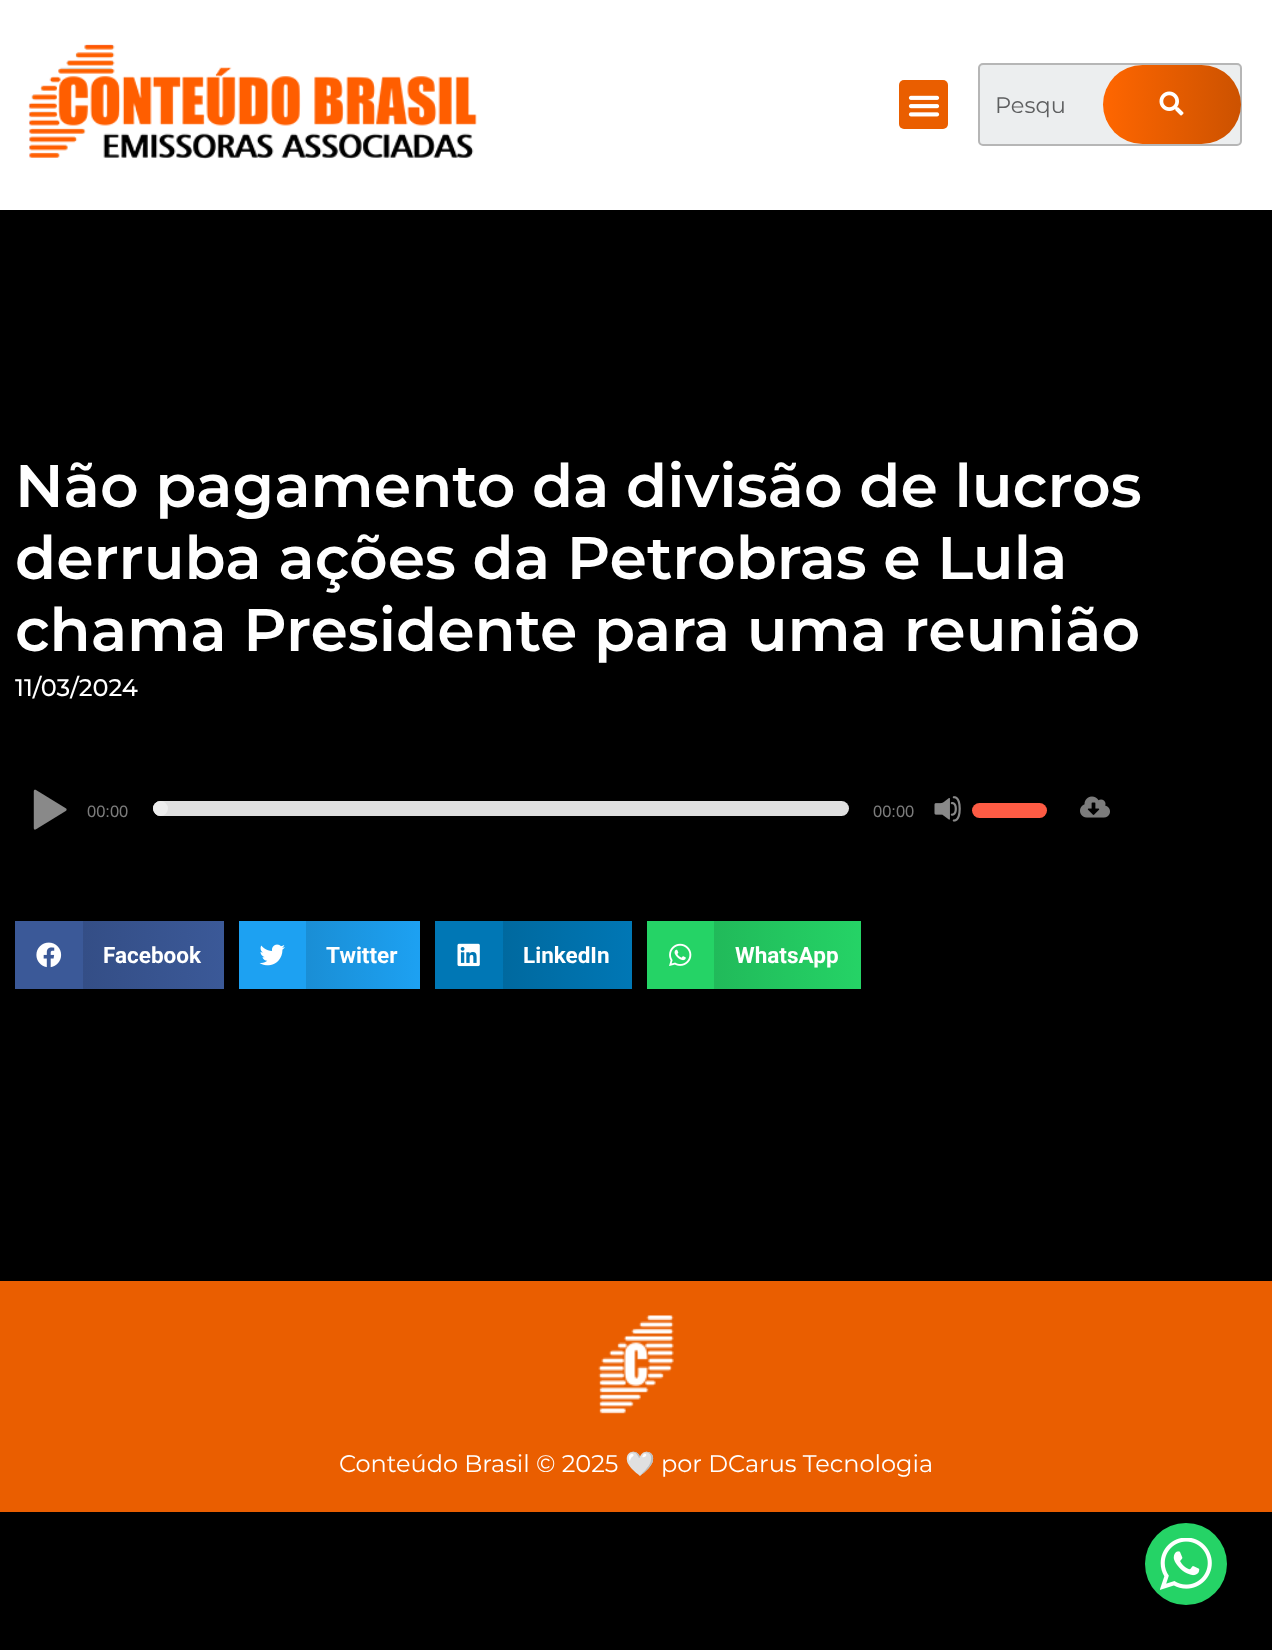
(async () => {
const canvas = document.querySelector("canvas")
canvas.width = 1272
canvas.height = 1650
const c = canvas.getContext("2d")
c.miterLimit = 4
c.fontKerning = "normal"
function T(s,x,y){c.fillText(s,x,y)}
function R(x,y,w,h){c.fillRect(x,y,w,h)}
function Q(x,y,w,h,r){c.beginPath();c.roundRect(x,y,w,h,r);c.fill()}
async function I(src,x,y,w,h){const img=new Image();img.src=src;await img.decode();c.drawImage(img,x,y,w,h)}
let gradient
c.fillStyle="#000"
R(0,0,1272,1650)
c.fillStyle="#fff"
R(0,0,1272,210)
await I("1.png",28,44,449,115)
c.fillStyle="#ea5e00"
Q(899,80,49,49,5)
await I("2.png",908,95,32,22)
c.fillStyle="#eceeef"
c.beginPath()
c.roundRect(979,64,262,81,4)
c.fill()
c.strokeStyle="#b6b6b6"
c.lineWidth=2
c.stroke()
c.font="22.5px Montserrat"
c.fillStyle="#5e5f60"
T("Pesqu",995,113)
gradient = c.createLinearGradient(1103,104,1241,104)
gradient.addColorStop(0,"#f60")
gradient.addColorStop(1,"#cc5200")
c.fillStyle = gradient
Q(1103,65,138,79,39.5)
await I("3.png",1159,91,25,25)
c.font="600 60px Montserrat"
c.fillStyle="#fff"
T("Não pagamento da divisão de lucros",15,507)
T("derruba ações da Petrobras e Lula",15,579)
T("chama Presidente para uma reunião",15,651)
c.font="500 24px Montserrat"
T("11/03/2024",15,696)
await I("4.png",33,789,34,41)
c.font="16.5px Liberation Sans"
c.fillStyle="#7c7c7c"
T("00:00",87,817)
c.fillStyle="#e0e0e0"
Q(153,801,696,15,7.5)
c.fillStyle="#ededed"
c.beginPath()
c.arc(160.5,808.5,4.5,0,7)
c.fill()
c.strokeStyle="#ededed"
c.lineWidth=6
c.stroke()
c.fillStyle="#7c7c7c"
T("00:00",873,817)
await I("5.png",934,796,27,26)
c.fillStyle="#fd5b44"
Q(972,803,75,15,7.5)
await I("6.png",1080,796,30,22)
c.fillStyle="#3b5998"
R(15,921,68,68)
await I("7.png",36,942,26,26)
gradient = c.createLinearGradient(83,955,224,955)
gradient.addColorStop(0,"#344e86")
gradient.addColorStop(1,"#3b5998")
c.fillStyle = gradient
R(83,921,141,68)
c.font="bold 22.5px Roboto"
c.fillStyle="#fff"
T("Facebook",103,963)
c.fillStyle="#1da1f2"
R(239,921,67,68)
await I("8.png",259,944,26,22)
gradient = c.createLinearGradient(306,955,420,955)
gradient.addColorStop(0,"#1a8ed5")
gradient.addColorStop(1,"#1da1f2")
c.fillStyle = gradient
R(306,921,114,68)
c.fillStyle="#fff"
T("Twitter",326,963)
c.fillStyle="#0077b5"
R(435,921,68,68)
await I("9.png",457,943,23,24)
gradient = c.createLinearGradient(503,955,632,955)
gradient.addColorStop(0,"#00699f")
gradient.addColorStop(1,"#0077b5")
c.fillStyle = gradient
R(503,921,129,68)
c.fillStyle="#fff"
T("LinkedIn",523,963)
c.fillStyle="#25d366"
R(647,921,67,68)
await I("10.png",669,943,23,23)
gradient = c.createLinearGradient(714,955,861,955)
gradient.addColorStop(0,"#21ba5a")
gradient.addColorStop(1,"#25d366")
c.fillStyle = gradient
R(714,921,147,68)
c.fillStyle="#fff"
T("WhatsApp",735,963)
c.fillStyle="#ea5e00"
R(0,1281,1272,231)
await I("11.png",598,1315,76,99)
c.font="24px Montserrat"
c.fillStyle="#fff"
T("Conteúdo Brasil © 2025",339,1472)
c.font="24px Noto Color Emoji"
T("🤍",625,1472)
c.font="24px Montserrat"
T("por DCarus Tecnologia",661,1472)
c.fillStyle="#25d366"
c.beginPath()
c.arc(1186,1564,41,0,7)
c.fill()
await I("12.png",1160,1538,52,52)
})()
